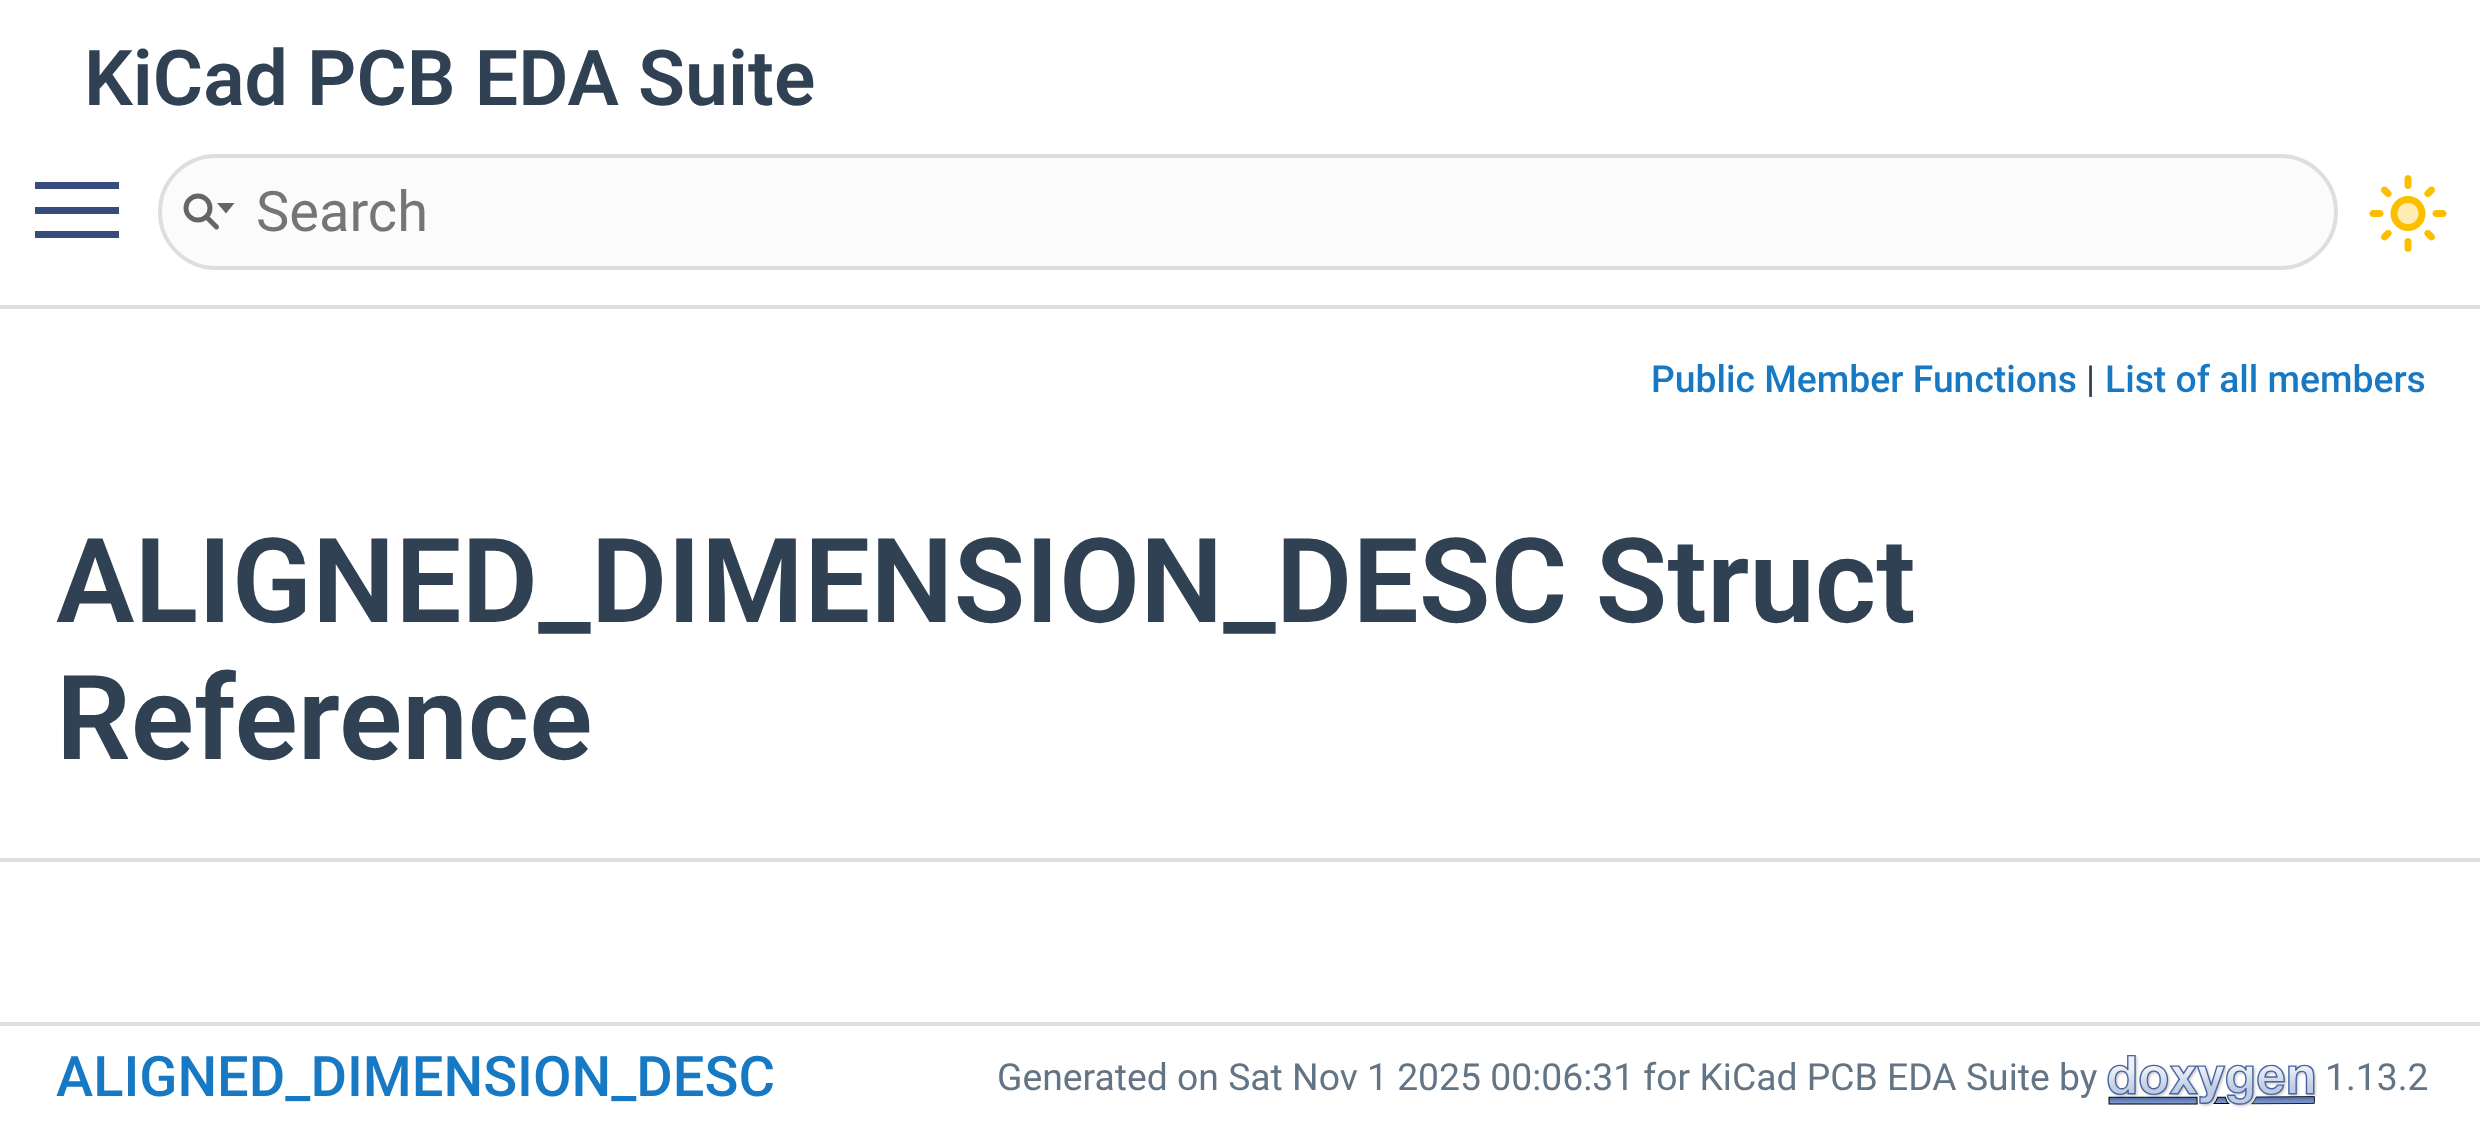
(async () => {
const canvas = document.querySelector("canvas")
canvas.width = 2480
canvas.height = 1130
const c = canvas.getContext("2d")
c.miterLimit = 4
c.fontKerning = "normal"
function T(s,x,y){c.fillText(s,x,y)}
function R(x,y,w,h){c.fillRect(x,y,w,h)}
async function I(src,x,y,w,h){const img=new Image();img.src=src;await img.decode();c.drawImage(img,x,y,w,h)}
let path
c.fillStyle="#fff"
R(0,0,2480,1130)
c.fillStyle="#dedede"
R(0,305,2480,4)
c.font="600 77px Roboto"
c.fillStyle="#2f4153"
T("KiCad PCB EDA Suite",84,105)
c.fillStyle="#364d7c"
R(35,207,84,7)
R(35,182,84,7)
R(35,231,84,7)
c.fillStyle="#fbfbfb"
c.beginPath()
c.roundRect(160,156,2176,112,56)
c.fill()
c.strokeStyle="#dedede"
c.lineWidth=4
c.stroke()
c.beginPath()
c.arc(198,208,12,0,7)
c.strokeStyle="#656565"
c.lineWidth=4.9
c.stroke()
c.fillStyle="#656565"
path = new Path2D("M217 203l9 10.5l8.5-10.5z")
c.fill(path)
path = new Path2D("M207 217.5l9.5 9.5")
c.lineCap="round"
c.stroke(path)
c.font="56px Roboto"
c.fillStyle="#757575"
T("Search",256,231)
await I("1.png",2369,175,78,77)
c.fillStyle="#dedede"
R(0,858,2480,4)
c.font="500 37.3px Roboto"
c.fillStyle="#1779c4"
T("Public Member Functions",1651,392)
c.font="37.3px Roboto"
c.fillStyle="#2f4153"
T("|",2086,392)
c.font="500 37.3px Roboto"
c.fillStyle="#1779c4"
T("List of all members",2105,392)
c.wordSpacing="-1px"
c.font="600 117.6px Roboto"
c.fillStyle="#2f4153"
T("ALIGNED_DIMENSION_DESC Struct",56,622)
c.wordSpacing="0px"
T("Reference",56,759)
c.fillStyle="#dedede"
R(0,1022,2480,4)
c.font="500 56px Roboto"
c.fillStyle="#1779c4"
T("ALIGNED_DIMENSION_DESC",56,1096)
c.font="37.3px Roboto"
c.fillStyle="#637485"
T("Generated on Sat Nov 1 2025 00:06:31 for KiCad PCB EDA Suite by",997,1090)
await I("2.png",2107,1055,210,53)
T("1.13.2",2325,1090)
})()
